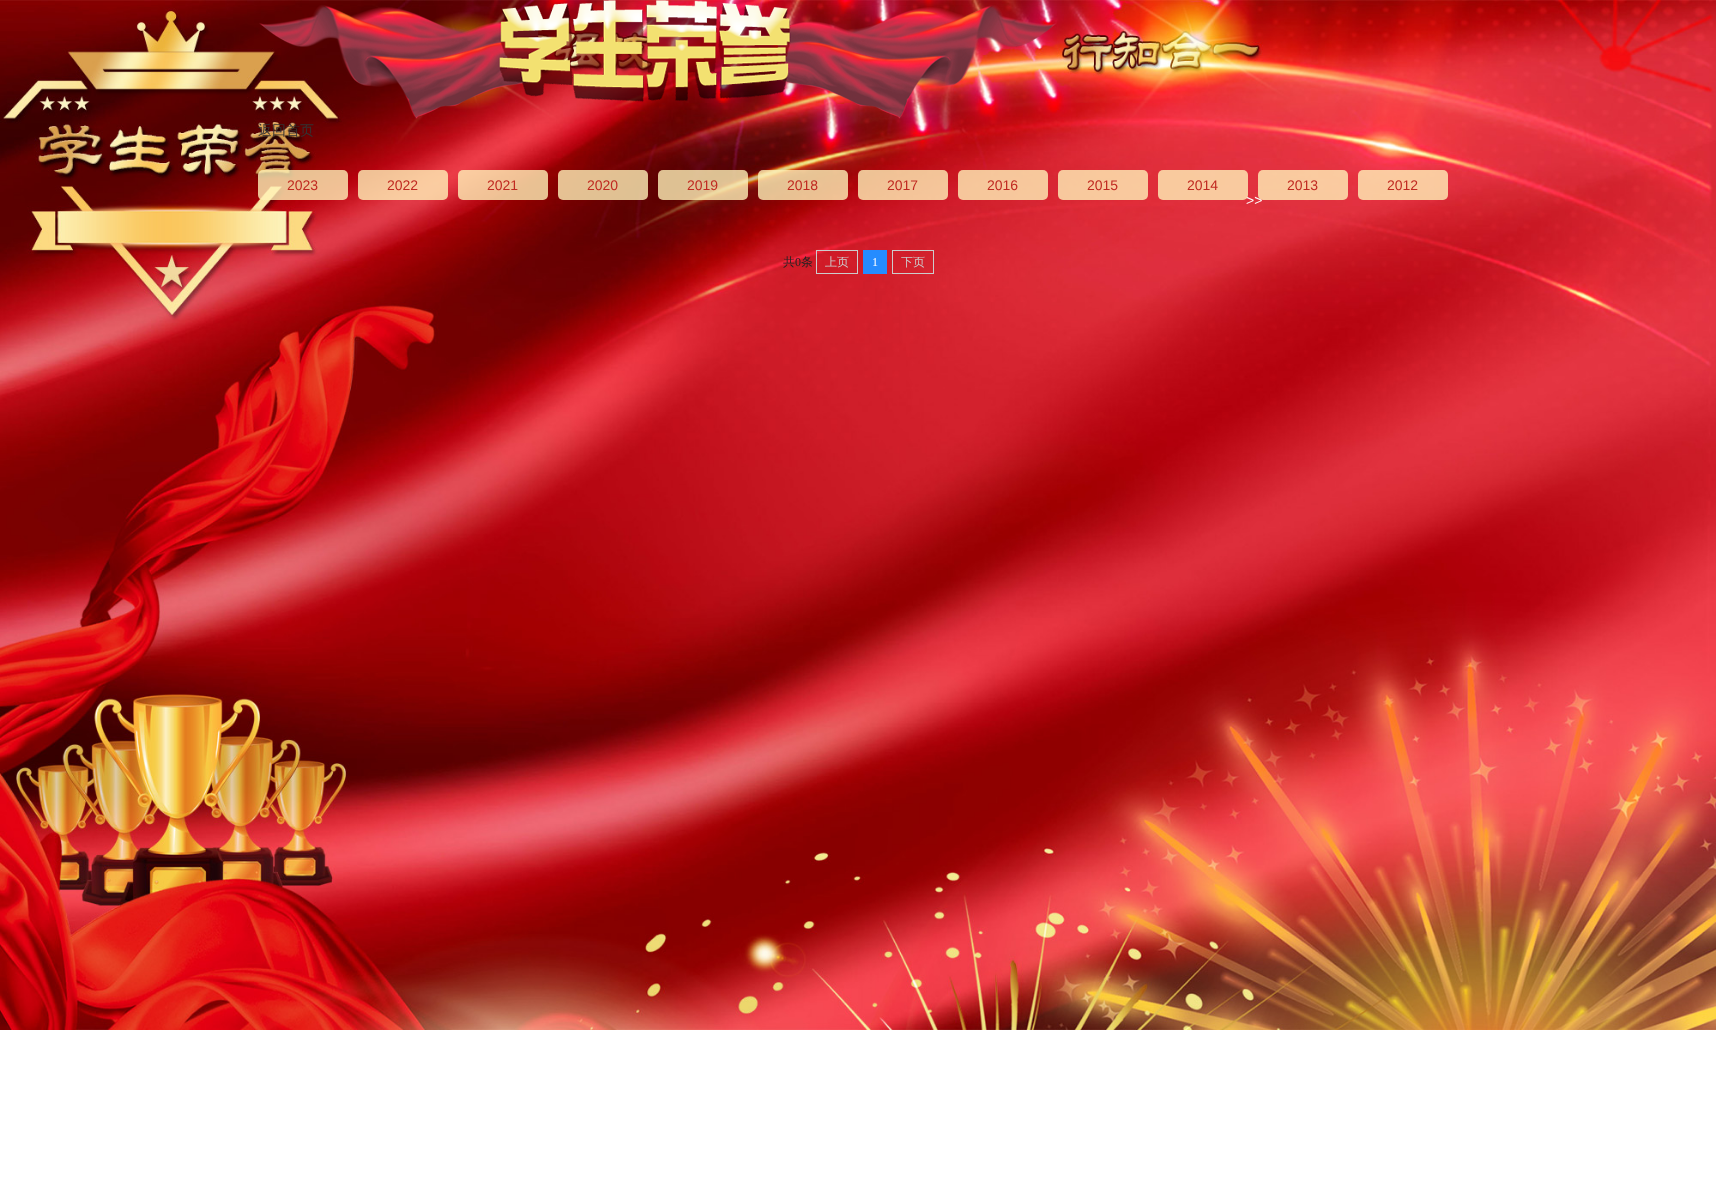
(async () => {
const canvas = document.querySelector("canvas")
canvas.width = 1716
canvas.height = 1201
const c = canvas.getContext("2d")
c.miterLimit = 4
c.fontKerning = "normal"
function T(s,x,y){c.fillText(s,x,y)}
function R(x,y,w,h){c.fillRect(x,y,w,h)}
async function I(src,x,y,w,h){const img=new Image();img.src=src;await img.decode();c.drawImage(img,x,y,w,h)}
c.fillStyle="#fff"
R(0,0,1716,1201)
await I("1.png",0,0,1716,1030)
await I("2.png",259,0,798,119)
c.font="500 14px WenQuanYi Zen Hei"
c.fillStyle="#333"
T("返回首页",258,135)
await I("3.png",258,170,90,30)
c.font="14px Liberation Sans"
c.fillStyle="#c02921"
T("2023",287,190)
await I("4.png",358,170,90,30)
T("2022",387,190)
await I("5.png",458,170,90,30)
T("2021",487,190)
await I("6.png",558,170,90,30)
T("2020",587,190)
await I("7.png",658,170,90,30)
T("2019",687,190)
await I("8.png",758,170,90,30)
T("2018",787,190)
await I("9.png",858,170,90,30)
T("2017",887,190)
await I("10.png",958,170,90,30)
T("2016",987,190)
await I("11.png",1058,170,90,30)
T("2015",1087,190)
c.fillStyle="#fff"
T(">>",1246,205)
await I("12.png",1158,170,90,30)
c.fillStyle="#c02921"
T("2014",1187,190)
await I("13.png",1258,170,90,30)
T("2013",1287,190)
await I("14.png",1358,170,90,30)
T("2012",1387,190)
c.font="500 12px WenQuanYi Zen Hei"
c.fillStyle="#222"
T("共",783,266)
c.font="12px Liberation Serif"
T("0",795,266)
c.font="500 12px WenQuanYi Zen Hei"
T("条",801,266)
c.strokeStyle="#ccc"
c.strokeRect(816.5,250.5,41,23)
c.fillStyle="#ccc"
T("上页",825,266)
c.fillStyle="#258cff"
R(863,250,24,24)
c.font="12px Liberation Serif"
c.fillStyle="#fff"
T("1",872,266)
c.strokeRect(892.5,250.5,41,23)
c.font="500 12px WenQuanYi Zen Hei"
c.fillStyle="#ccc"
T("下页",901,266)
})()
